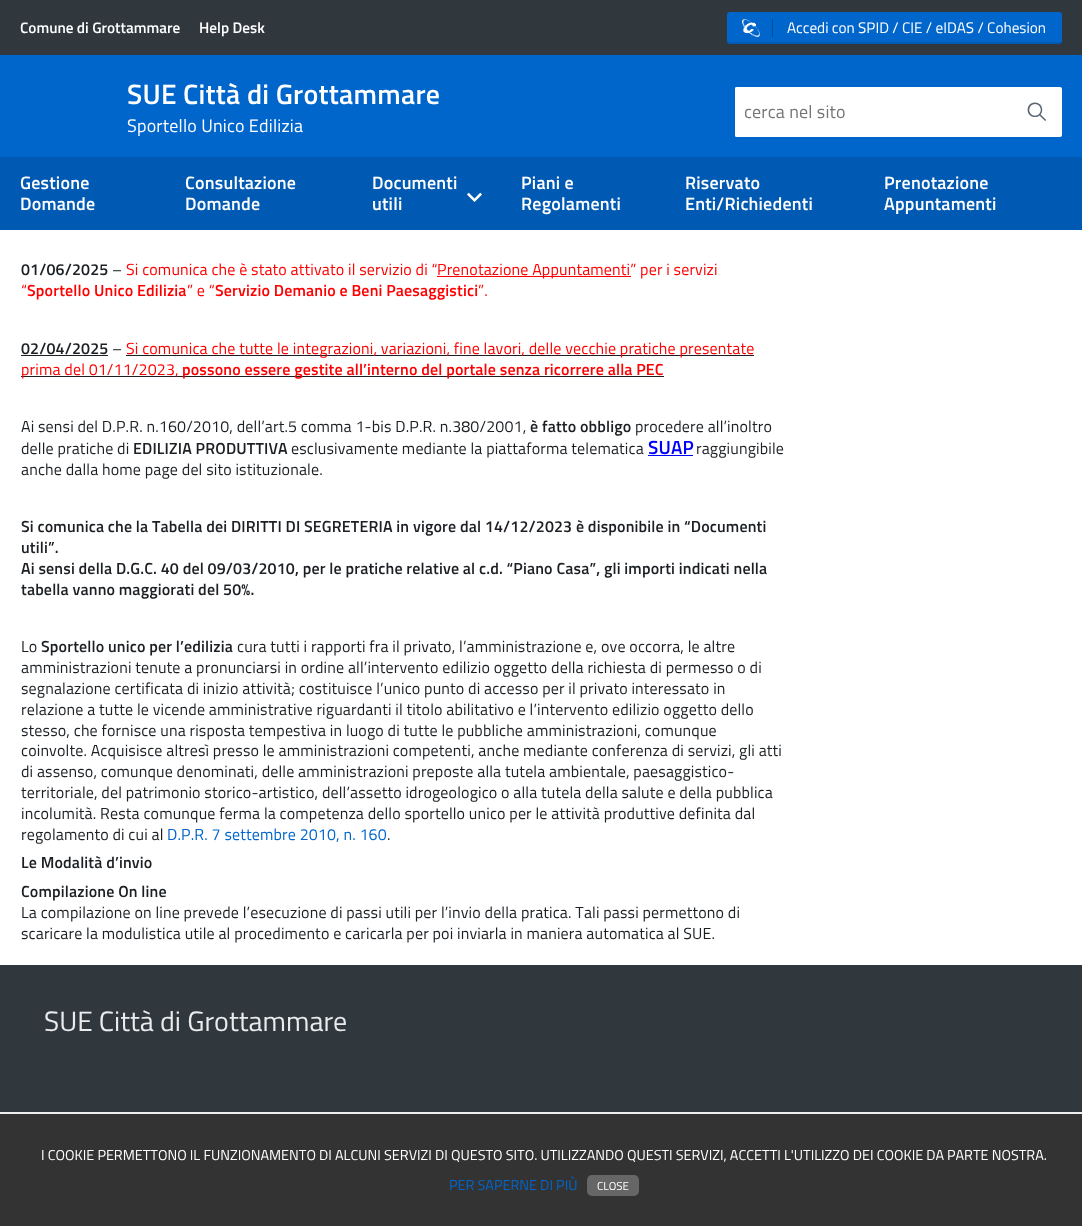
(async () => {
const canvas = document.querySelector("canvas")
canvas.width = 1082
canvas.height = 1226
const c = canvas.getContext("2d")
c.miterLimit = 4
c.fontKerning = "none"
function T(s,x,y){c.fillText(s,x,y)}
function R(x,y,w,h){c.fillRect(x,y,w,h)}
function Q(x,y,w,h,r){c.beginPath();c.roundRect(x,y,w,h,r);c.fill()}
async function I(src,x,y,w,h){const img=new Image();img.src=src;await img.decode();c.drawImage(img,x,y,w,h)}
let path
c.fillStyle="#fff"
R(0,0,1082,1226)
c.fillStyle="#30373d"
R(0,0,1082,55)
c.font="600 15.25px Titillium Web"
c.fillStyle="#fff"
T("Comune di Grottammare",20,33)
T("Help Desk",199,33)
c.fillStyle="#06c"
Q(727,12,335,32,3)
c.fillStyle="#0000001a"
path = new Path2D("M1059 44c2 0 3-1 3-3c0 1-1 1-3 1h-329c-2 0-3 0-3-1c0 2 1 3 3 3z")
c.fill(path)
c.fillStyle="#004d99"
R(772,19,1,18)
await I("1.png",742,19,18,18)
c.font="15.25px Titillium Web"
c.fillStyle="#fff"
T("Accedi con SPID / CIE / eIDAS / Cohesion",787,33)
c.fillStyle="#06c"
R(0,55,1082,102)
c.letterSpacing="0.25px"
c.font="600 28px Titillium Web"
c.fillStyle="#fff"
T("SUE Città di Grottammare",127,104)
c.letterSpacing="0.2px"
c.font="18px Titillium Web"
T("Sportello Unico Edilizia",127,132)
Q(735,87,327,50,2)
Q(735,87,277,50,2)
c.fillStyle="#757575"
T("cerca nel sito",744,118)
c.letterSpacing="0px"
c.font="bold 18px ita"
c.fillStyle="#5a6772"
c.save()
c.translate(1045,121)
c.rotate(-90 * Math.PI / 180)
c.fillText("🔍",0,0)
c.restore()
c.fillStyle="#0059b2"
R(0,157,1082,73)
c.letterSpacing="0.2px"
c.font="600 18px Titillium Web"
c.fillStyle="#fff"
T("Gestione",20,189)
T("Domande",20,210)
T("Consultazione",185,189)
T("Domande",185,210)
T("Documenti",372,189)
T("utili",372,210)
c.font="15px ita"
T("⏶",467,204)
c.font="600 18px Titillium Web"
T("Piani e",521,189)
T("Regolamenti",521,210)
T("Riservato",685,189)
T("Enti/Richiedenti",685,210)
T("Prenotazione",884,189)
T("Appuntamenti",884,210)
c.letterSpacing="0.15px"
c.font="600 16px Titillium Web"
c.fillStyle="#1c2024"
T("01/06/2025",21,275)
c.font="16px Titillium Web"
T("–",112,275)
c.fillStyle="#f00"
T("Si comunica che è stato attivato il servizio di “",126,275)
R(437,276,194,1)
T("Prenotazione Appuntamenti” per i servizi",437,275)
T("“",21,296)
c.font="600 16px Titillium Web"
T("Sportello Unico Edilizia",27,296)
c.font="16px Titillium Web"
T("” e “",187,296)
c.font="600 16px Titillium Web"
T("Servizio Demanio e Beni Paesaggistici",215,296)
c.font="16px Titillium Web"
T("”.",478,296)
c.font="600 16px Titillium Web"
c.fillStyle="#1c2024"
T("02/04/2025",21,354)
R(21,355,87,1)
c.font="16px Titillium Web"
T("–",112,354)
R(126,355,628,1)
c.fillStyle="#f00"
T("Si comunica che tutte le integrazioni, variazioni, fine lavori, delle vecchie pratiche presentate",126,354)
c.fillStyle="#1c2024"
R(21,376,643,1)
c.fillStyle="#f00"
T("prima del 01/11/2023,",21,375)
c.font="600 16px Titillium Web"
T("possono essere gestite all’interno del portale senza ricorrere alla PEC",182,375)
c.font="16px Titillium Web"
c.fillStyle="#1c2024"
T("Ai sensi del D.P.R. n.160/2010, dell’art.5 comma 1-bis D.P.R. n.380/2001,",21,432)
c.font="600 16px Titillium Web"
T("è fatto obbligo",530,432)
c.font="16px Titillium Web"
T("procedere all’inoltro",635,432)
T("delle pratiche di",21,454)
c.font="600 16px Titillium Web"
T("EDILIZIA PRODUTTIVA",133,454)
c.font="16px Titillium Web"
T("esclusivamente mediante la piattaforma telematica",291,454)
c.font="600 19px Titillium Web"
c.fillStyle="#00f"
T("SUAP",648,454)
R(648,455,45,1)
c.font="16px Titillium Web"
c.fillStyle="#1c2024"
T("raggiungibile",696,454)
T("anche dalla home page del sito istituzionale.",21,475)
c.font="600 16px Titillium Web"
T("Si comunica che la Tabella dei DIRITTI DI SEGRETERIA in vigore dal 14/12/2023 è disponibile in “Documenti",21,532)
T("utili”.",21,553)
T("Ai sensi della D.G.C. 40 del 09/03/2010, per le pratiche relative al c.d. “Piano Casa”, gli importi indicati nella",21,574)
T("tabella vanno maggiorati del 50%.",21,595)
c.font="16px Titillium Web"
T("Lo",21,652)
c.font="600 16px Titillium Web"
T("Sportello unico per l’edilizia",41,652)
c.font="16px Titillium Web"
T("cura tutti i rapporti fra il privato, l’amministrazione e, ove occorra, le altre",237,652)
T("amministrazioni tenute a pronunciarsi in ordine all’intervento edilizio oggetto della richiesta di permesso o di",21,673)
T("segnalazione certificata di inizio attività; costituisce l’unico punto di accesso per il privato interessato in",21,694)
T("relazione a tutte le vicende amministrative riguardanti il titolo abilitativo e l’intervento edilizio oggetto dello",21,715)
T("stesso, che fornisce una risposta tempestiva in luogo di tutte le pubbliche amministrazioni, comunque",21,736)
T("coinvolte. Acquisisce altresì presso le amministrazioni competenti, anche mediante conferenza di servizi, gli atti",21,756)
T("di assenso, comunque denominati, delle amministrazioni preposte alla tutela ambientale, paesaggistico-",21,777)
T("territoriale, del patrimonio storico-artistico, dell’assetto idrogeologico o alla tutela della salute e della pubblica",21,798)
T("incolumità. Resta comunque ferma la competenza dello sportello unico per le attività produttive definita dal",21,819)
T("regolamento di cui al",21,840)
c.fillStyle="#06c"
T("D.P.R. 7 settembre 2010, n. 160",167,840)
c.fillStyle="#1c2024"
T(".",387,840)
c.font="600 16px Titillium Web"
T("Le Modalità d’invio",21,868)
T("Compilazione On line",21,897)
c.font="16px Titillium Web"
T("La compilazione on line prevede l’esecuzione di passi utili per l’invio della pratica. Tali passi permettono di",21,918)
T("scaricare la modulistica utile al procedimento e caricarla per poi inviarla in maniera automatica al SUE.",21,939)
c.fillStyle="#30373d"
R(0,965,1082,147)
c.letterSpacing="0px"
c.font="28px Titillium Web"
c.fillStyle="#eaebec"
T("SUE Città di Grottammare",44,1031)
c.fillStyle="#333"
R(0,1114,1082,112)
c.fillStyle="#eee"
R(0,1112,1082,2)
c.font="14.4px Titillium Web"
c.fillStyle="#fff"
T("I COOKIE PERMETTONO IL FUNZIONAMENTO DI ALCUNI SERVIZI DI QUESTO SITO. UTILIZZANDO QUESTI SERVIZI, ACCETTI L'UTILIZZO DEI COOKIE DA",41,1160)
T("PARTE NOSTRA.",947,1160)
c.fillStyle="#06c"
T("PER SAPERNE DI PIÙ",449,1190)
c.fillStyle="#666"
Q(587,1175,52,21,5)
c.font="11.5px Titillium Web"
c.fillStyle="#fff"
T("CLOSE",597,1190)
})()
